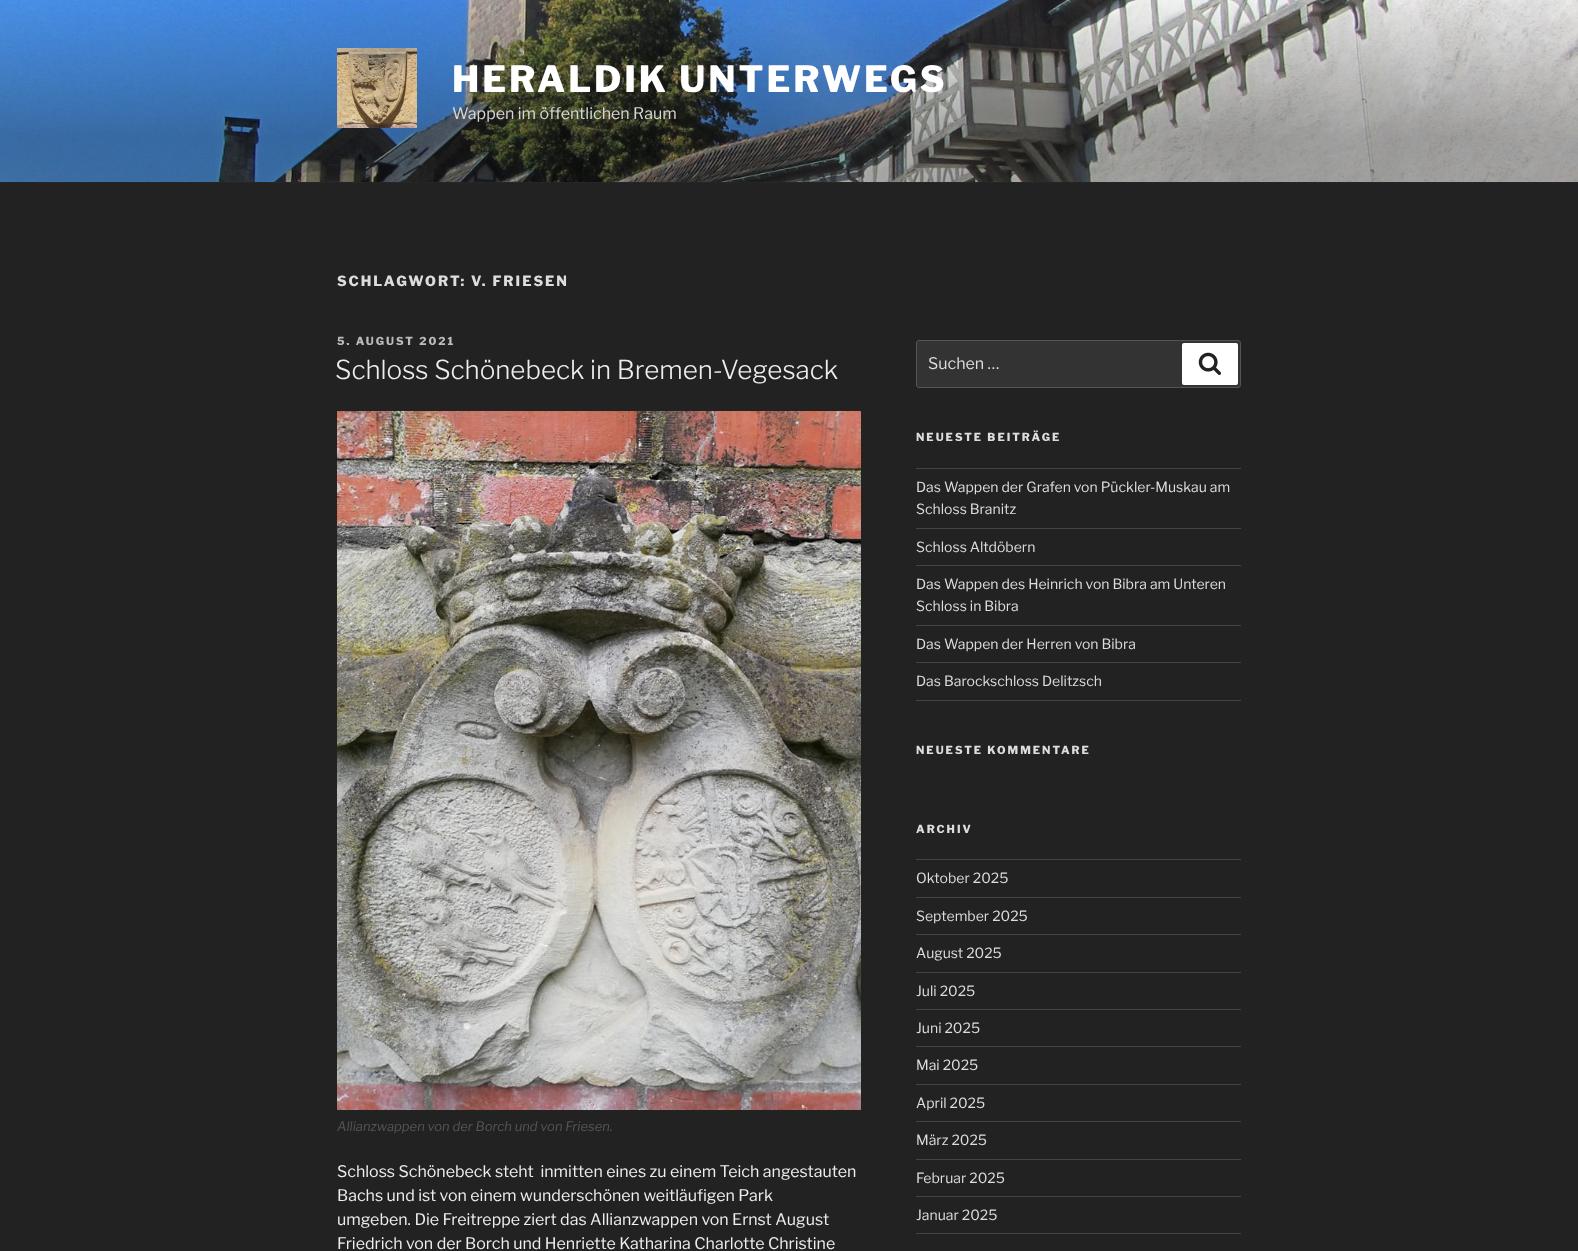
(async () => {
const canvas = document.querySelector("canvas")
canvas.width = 1578
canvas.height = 1251
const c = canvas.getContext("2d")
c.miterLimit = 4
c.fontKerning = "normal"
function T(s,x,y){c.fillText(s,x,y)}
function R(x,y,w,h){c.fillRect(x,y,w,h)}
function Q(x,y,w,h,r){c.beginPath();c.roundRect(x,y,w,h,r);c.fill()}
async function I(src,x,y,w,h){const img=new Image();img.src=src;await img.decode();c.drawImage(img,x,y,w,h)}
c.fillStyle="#222"
R(0,0,1578,1251)
c.fillStyle="#262626"
R(0,182,1578,1)
await I("1.png",0,0,1578,182)
await I("2.png",337,48,80,80)
c.letterSpacing="2.9px"
c.font="100 36px Libre Franklin"
c.fillStyle="#fff"
T("HERALDIK UNTERWEGS",452,92)
c.letterSpacing="0px"
c.font="100 16px 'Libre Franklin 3'"
c.fillStyle="#d6d7d5"
T("Wappen im öffentlichen Raum",452,119)
c.letterSpacing="2px"
c.font="100 14px Libre Franklin"
c.fillStyle="#ddd"
T("SCHLAGWORT: V. FRIESEN",337,286)
c.font="100 11px Libre Franklin"
c.fillStyle="#bbb"
T("5. AUGUST 2021",337,345)
c.letterSpacing="0px"
c.font="100 26px 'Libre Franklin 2'"
c.fillStyle="#eee"
T("Schloss Schönebeck in Bremen-Vegesack",335,379)
await I("3.png",337,411,524,699)
c.font="italic 100 13px Libre Franklin"
c.fillStyle="#555"
T("Allianzwappen von der Borch und von Friesen.",337,1131)
c.font="100 16px 'Libre Franklin 3'"
c.fillStyle="#eee"
T("Schloss Schönebeck steht  inmitten eines zu einem Teich angestauten",337,1177)
T("Bachs und ist von einem wunderschönen weitläufigen Park",337,1201)
T("umgeben. Die Freitreppe ziert das Allianzwappen von Ernst August",337,1225)
T("Friedrich von der Borch und Henriette Katharina Charlotte Christine",337,1249)
c.fillStyle="#333"
c.beginPath()
c.roundRect(916.5,340.5,324,47,2.5)
c.fill()
c.strokeStyle="#555"
c.stroke()
c.fillStyle="#ddd"
T("Suchen …",928,369)
c.fillStyle="#fff"
Q(1182,343,56,42,2)
await I("4.png",1198,352,23,23)
c.letterSpacing="2px"
c.font="100 11px Libre Franklin"
c.fillStyle="#ddd"
T("NEUESTE BEITRÄGE",916,441)
c.fillStyle="#444"
R(916,468,325,1)
R(916,528,325,1)
c.letterSpacing="0px"
c.font="100 14px 'Libre Franklin 3'"
c.fillStyle="#ddd"
T("Das Wappen der Grafen von Pückler-Muskau am",916,492)
T("Schloss Branitz",916,514)
c.fillStyle="#444"
R(916,565,325,1)
c.fillStyle="#ddd"
T("Schloss Altdöbern",916,552)
c.fillStyle="#444"
R(916,625,325,1)
c.fillStyle="#ddd"
T("Das Wappen des Heinrich von Bibra am Unteren",916,589)
T("Schloss in Bibra",916,611)
c.fillStyle="#444"
R(916,662,325,1)
c.fillStyle="#ddd"
T("Das Wappen der Herren von Bibra",916,649)
c.fillStyle="#444"
R(916,700,325,1)
c.fillStyle="#ddd"
T("Das Barockschloss Delitzsch",916,686)
c.letterSpacing="2px"
c.font="100 11px Libre Franklin"
T("NEUESTE KOMMENTARE",916,754)
T("ARCHIV",916,833)
c.fillStyle="#444"
R(916,859,325,1)
R(916,897,325,1)
c.letterSpacing="0px"
c.font="100 14px 'Libre Franklin 3'"
c.fillStyle="#ddd"
T("Oktober 2025",916,883)
c.fillStyle="#444"
R(916,934,325,1)
c.fillStyle="#ddd"
T("September 2025",916,921)
c.fillStyle="#444"
R(916,972,325,1)
c.fillStyle="#ddd"
T("August 2025",916,958)
c.fillStyle="#444"
R(916,1009,325,1)
c.fillStyle="#ddd"
T("Juli 2025",916,996)
c.fillStyle="#444"
R(916,1046,325,1)
c.fillStyle="#ddd"
T("Juni 2025",916,1033)
c.fillStyle="#444"
R(916,1084,325,1)
c.fillStyle="#ddd"
T("Mai 2025",916,1070)
c.fillStyle="#444"
R(916,1121,325,1)
c.fillStyle="#ddd"
T("April 2025",916,1108)
c.fillStyle="#444"
R(916,1159,325,1)
c.fillStyle="#ddd"
T("März 2025",916,1145)
c.fillStyle="#444"
R(916,1196,325,1)
c.fillStyle="#ddd"
T("Februar 2025",916,1183)
c.fillStyle="#444"
R(916,1233,325,1)
c.fillStyle="#ddd"
T("Januar 2025",916,1220)
})()
